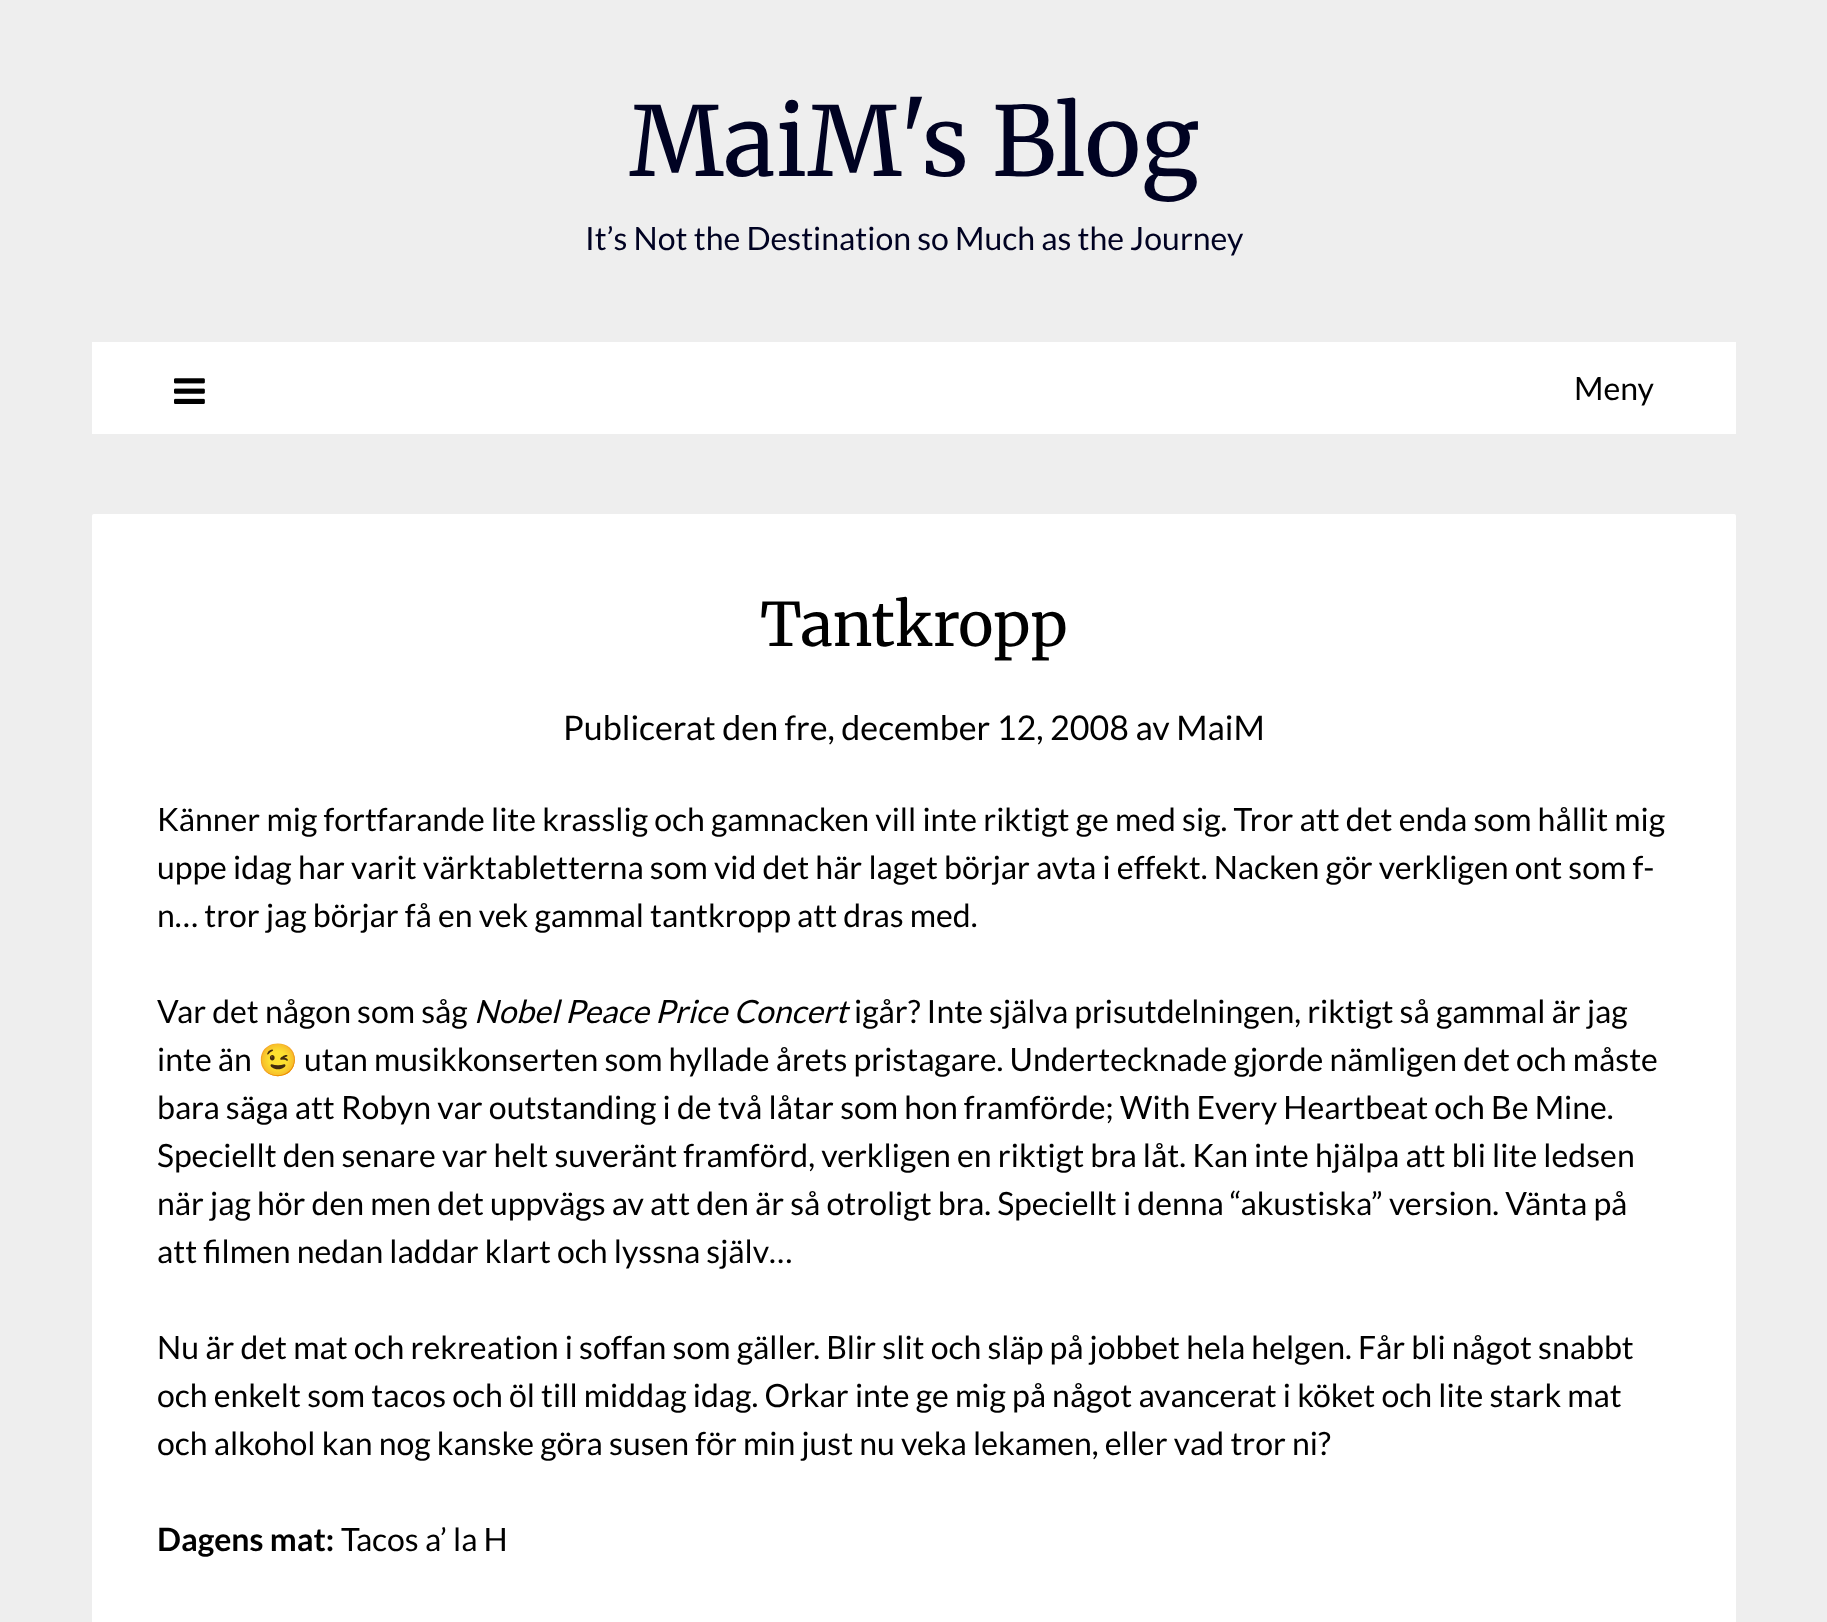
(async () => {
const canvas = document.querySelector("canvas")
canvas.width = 1827
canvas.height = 1622
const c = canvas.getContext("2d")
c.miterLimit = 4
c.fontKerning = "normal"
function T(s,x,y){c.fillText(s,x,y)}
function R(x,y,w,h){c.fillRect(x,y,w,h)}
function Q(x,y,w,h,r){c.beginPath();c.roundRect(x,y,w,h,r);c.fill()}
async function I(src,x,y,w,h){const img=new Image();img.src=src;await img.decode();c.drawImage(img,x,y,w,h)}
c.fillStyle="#eee"
R(0,0,1827,1622)
c.font="96px Merriweather"
c.fillStyle="#000222"
T("MaiM's Blog",629,176)
c.font="32px Lato"
T("It’s Not the Destination so Much as the Journey",585,250)
c.fillStyle="#fff"
R(92,342,1644,92)
await I("1.png",174,378,31,26)
c.fillStyle="#000"
T("Meny",1574,400)
c.fillStyle="#fff"
Q(92,514,1644,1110,2)
c.font="60px Merriweather"
c.fillStyle="#000"
T("Tantkropp",760,646)
c.font="34px Lato"
T("Publicerat den fre, december 12, 2008 av MaiM",563,740)
c.font="32px Lato"
T("Känner mig fortfarande lite krasslig och gamnacken vill inte riktigt ge med sig. Tror att det enda som hållit mig",157,831)
T("uppe idag har varit värktabletterna som vid det här laget börjar avta i effekt. Nacken gör verkligen ont som f-",157,879)
T("n… tror jag börjar få en vek gammal tantkropp att dras med.",157,927)
T("Var det någon som såg",157,1023)
c.font="italic 32px Lato"
T("Nobel Peace Price Concert",474,1023)
c.font="32px Lato"
T("igår? Inte själva prisutdelningen, riktigt så gammal är jag",854,1023)
T("inte än",157,1071)
c.font="32px Noto Color Emoji"
T("😉",258,1071)
c.font="32px Lato"
T("utan musikkonserten som hyllade årets pristagare. Undertecknade gjorde nämligen det och måste",304,1071)
T("bara säga att Robyn var outstanding i de två låtar som hon framförde; With Every Heartbeat och Be Mine.",157,1119)
T("Speciellt den senare var helt suveränt framförd, verkligen en riktigt bra låt. Kan inte hjälpa att bli lite ledsen",157,1167)
T("när jag hör den men det uppvägs av att den är så otroligt bra. Speciellt i denna “akustiska” version. Vänta på",157,1215)
T("att filmen nedan laddar klart och lyssna själv…",157,1263)
T("Nu är det mat och rekreation i soffan som gäller. Blir slit och släp på jobbet hela helgen. Får bli något snabbt",157,1359)
T("och enkelt som tacos och öl till middag idag. Orkar inte ge mig på något avancerat i köket och lite stark mat",157,1407)
T("och alkohol kan nog kanske göra susen för min just nu veka lekamen, eller vad tror ni?",157,1455)
c.font="bold 32px Lato"
T("Dagens mat:",157,1551)
c.font="32px Lato"
T("Tacos a’ la H",341,1551)
})()
